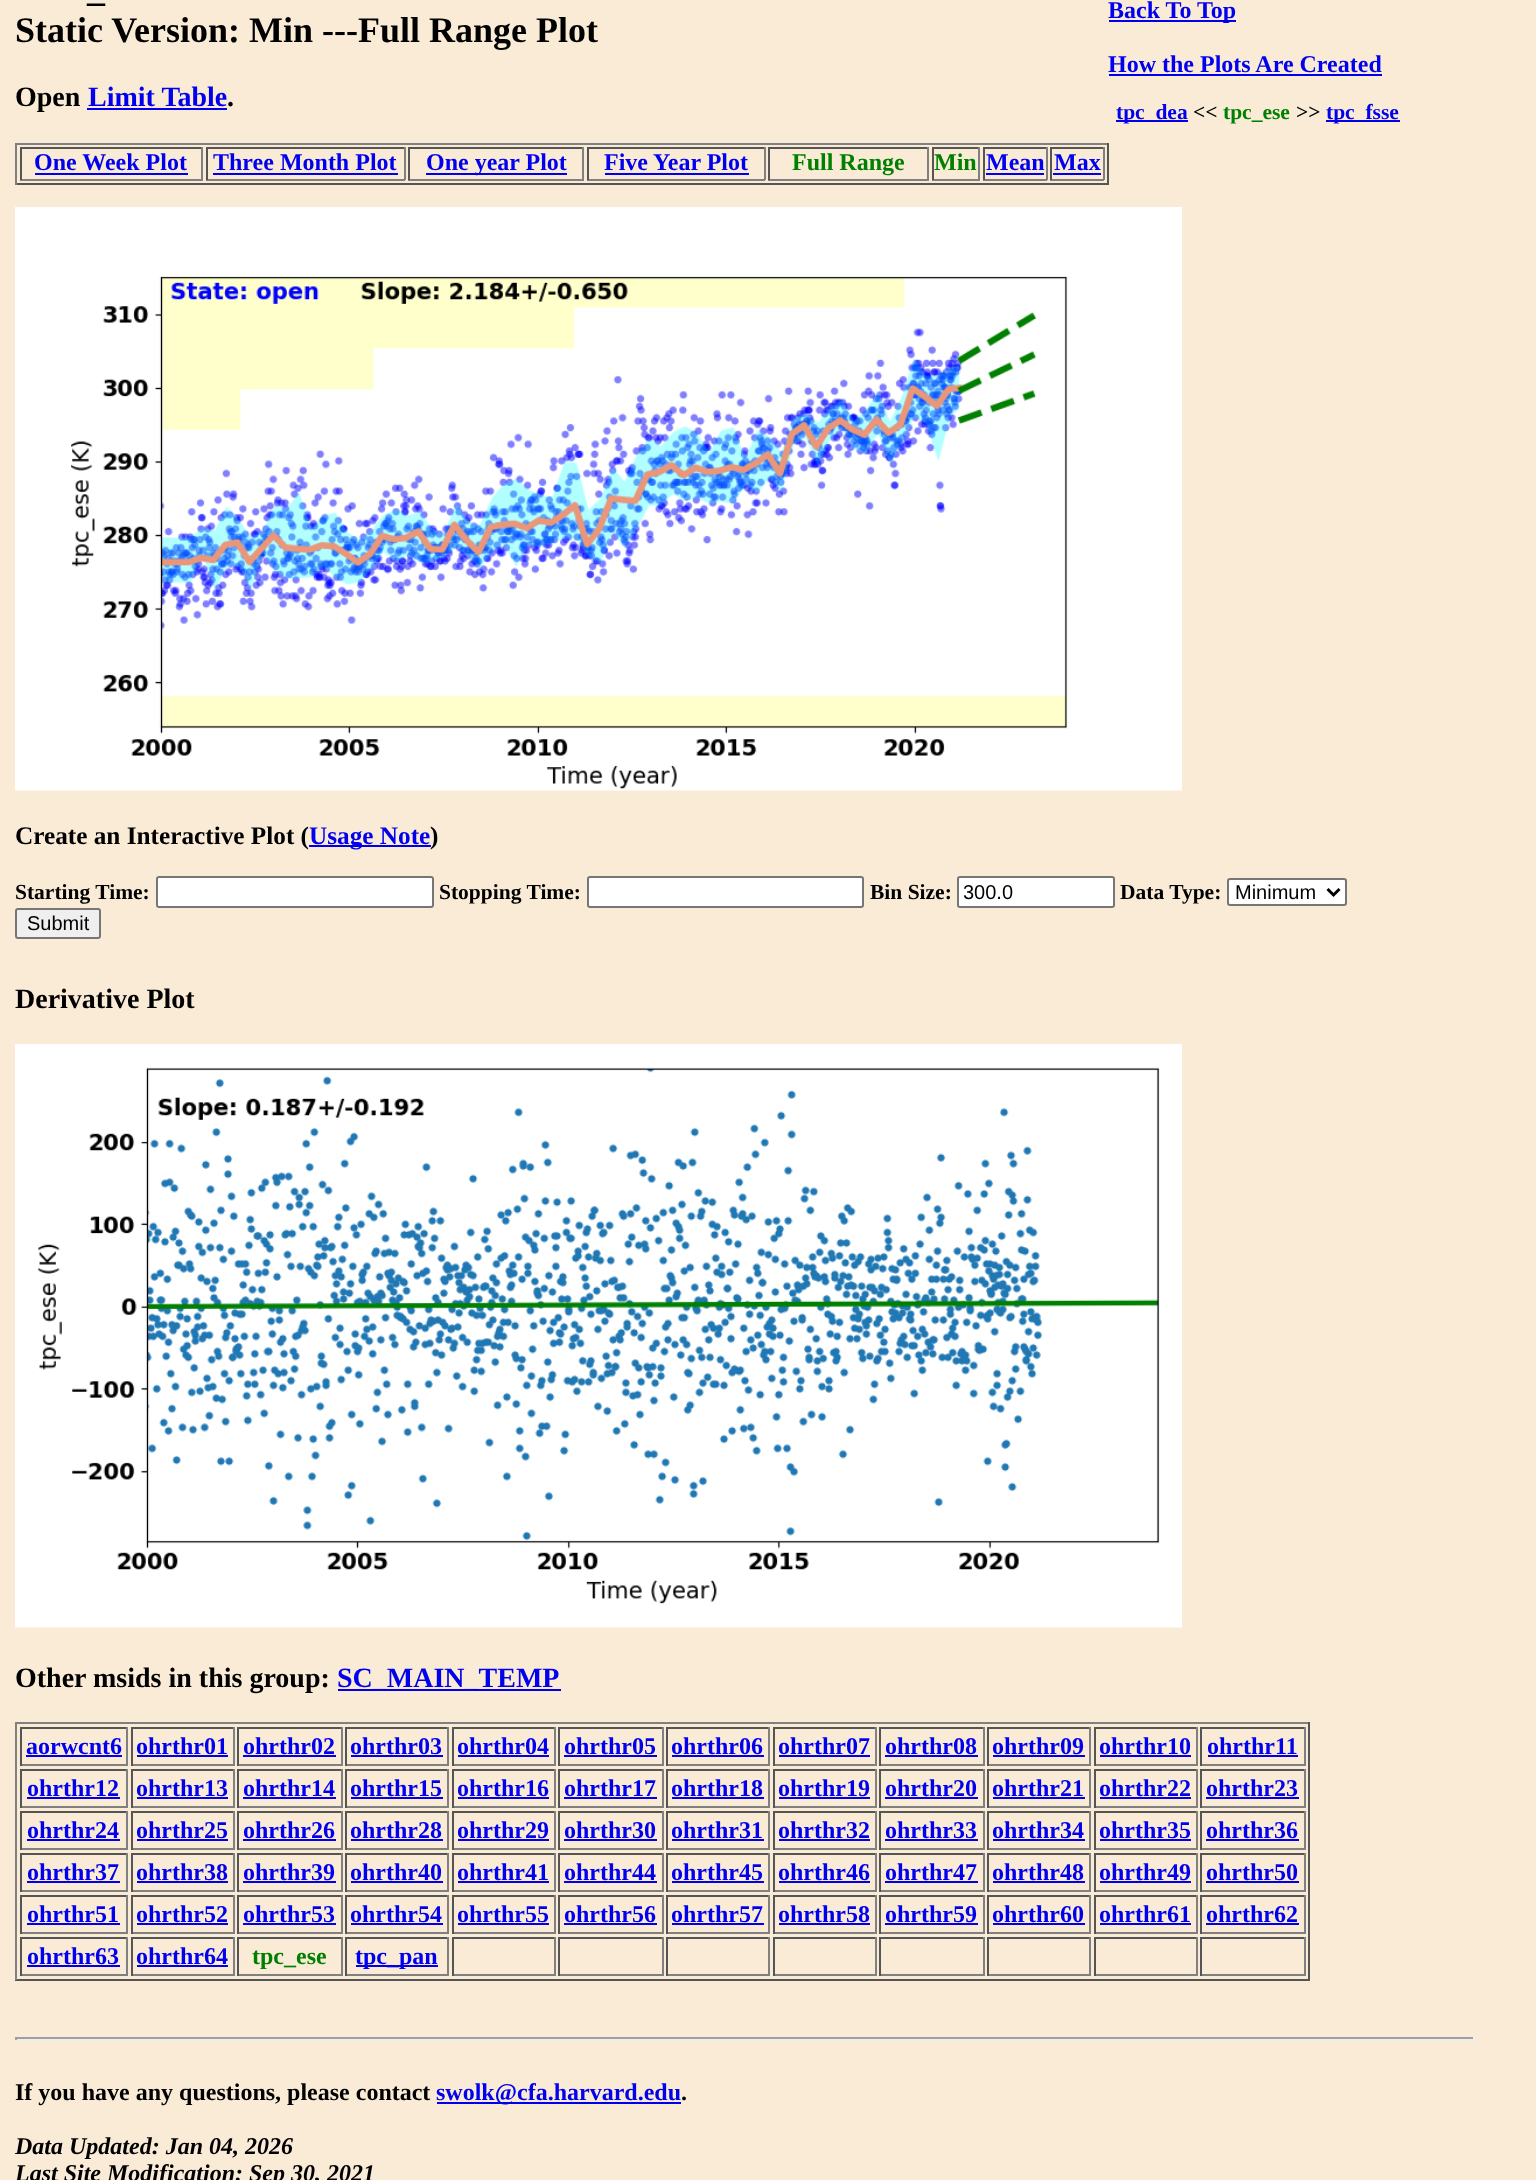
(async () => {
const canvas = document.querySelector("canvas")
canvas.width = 1536
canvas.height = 2180
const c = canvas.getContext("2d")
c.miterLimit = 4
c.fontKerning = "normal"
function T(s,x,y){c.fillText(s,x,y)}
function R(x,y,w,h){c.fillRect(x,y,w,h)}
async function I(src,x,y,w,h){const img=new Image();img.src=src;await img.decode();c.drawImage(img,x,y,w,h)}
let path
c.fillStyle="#faebd7"
R(0,0,1536,2180)
c.fillStyle="#00e"
R(1109,20,127,2)
c.font="bold 24px Liberation Serif"
T("Back To Top",1108,18)
T("How the Plots Are Created",1108,72)
R(1109,74,273,2)
R(1116,120,72,2)
c.font="bold 21.5px Liberation Serif"
T("tpc_dea",1116,119)
c.fillStyle="#000"
T("<<",1193,119)
c.fillStyle="#008000"
T("tpc_ese",1223,119)
c.fillStyle="#000"
T(">>",1296,119)
c.fillStyle="#00e"
R(1326,120,74,2)
T("tpc_fsse",1326,119)
c.font="bold 36px Liberation Serif"
c.fillStyle="#000"
T("_",87,1)
T("Static Version: Min ---Full Range Plot",15,42)
c.font="bold 28px Liberation Serif"
T("Open",15,106)
c.fillStyle="#00e"
T("Limit Table",88,106)
R(87,108,140,2)
c.fillStyle="#000"
T(".",227,106)
c.fillStyle="#808080"
R(15,143,1094,2)
c.fillStyle="#555"
R(1107,143,2,42)
R(15,183,1094,2)
c.fillStyle="#808080"
R(15,143,2,42)
c.fillStyle="#555"
R(20,147,183,2)
c.fillStyle="#808080"
R(201,147,2,33)
R(20,179,183,2)
c.fillStyle="#555"
R(20,147,2,33)
c.font="bold 24px Liberation Serif"
c.fillStyle="#00e"
T("One Week Plot",34,170)
R(35,173,153,2)
c.fillStyle="#555"
R(206,147,199,2)
c.fillStyle="#808080"
R(404,147,2,33)
R(206,179,199,2)
c.fillStyle="#555"
R(206,147,2,33)
c.fillStyle="#00e"
T("Three Month Plot",213,170)
R(213,173,185,2)
c.fillStyle="#555"
R(408,147,176,2)
c.fillStyle="#808080"
R(582,147,2,33)
R(408,179,176,2)
c.fillStyle="#555"
R(408,147,2,33)
c.fillStyle="#00e"
R(426,173,141,2)
T("One year Plot",426,170)
c.fillStyle="#555"
R(587,147,178,2)
c.fillStyle="#808080"
R(764,147,2,33)
R(587,179,178,2)
c.fillStyle="#555"
R(587,147,2,33)
c.fillStyle="#00e"
T("Five Year Plot",604,170)
R(605,173,144,2)
c.fillStyle="#555"
R(768,147,161,2)
c.fillStyle="#808080"
R(927,147,2,33)
R(768,179,161,2)
c.fillStyle="#555"
R(768,147,2,33)
c.fillStyle="#008000"
T("Full Range",792,170)
c.fillStyle="#555"
R(932,147,48,2)
c.fillStyle="#808080"
R(978,147,2,33)
R(932,179,48,2)
c.fillStyle="#555"
R(932,147,2,33)
c.fillStyle="#008000"
T("Min",934,170)
c.fillStyle="#555"
R(983,147,64,2)
c.fillStyle="#808080"
R(1046,147,2,33)
R(983,179,64,2)
c.fillStyle="#555"
R(983,147,2,33)
c.fillStyle="#00e"
T("Mean",986,170)
R(986,173,58,2)
c.fillStyle="#555"
R(1050,147,54,2)
c.fillStyle="#808080"
R(1103,147,2,33)
R(1050,179,54,2)
c.fillStyle="#555"
R(1050,147,2,33)
c.fillStyle="#00e"
T("Max",1054,170)
R(1053,173,48,2)
await I("1.png",15,207,1167,584)
c.font="bold 25.25px Liberation Serif"
c.fillStyle="#000"
T("Create an Interactive Plot (",15,844)
c.fillStyle="#00e"
R(309,845,122,2)
T("Usage Note",309,844)
c.fillStyle="#000"
T(")",430,844)
c.font="bold 21.5px Liberation Serif"
T("Starting Time:",15,899)
c.fillStyle="#fff"
c.beginPath()
c.roundRect(157,877,276,30,2)
c.fill()
c.strokeStyle="#767676"
c.lineWidth=2
c.stroke()
c.fillStyle="#000"
T("Stopping Time:",439,899)
c.fillStyle="#fff"
c.beginPath()
c.roundRect(588,877,275,30,2)
c.fill()
c.stroke()
c.fillStyle="#000"
T("Bin Size:",870,899)
c.fillStyle="#fff"
c.beginPath()
c.roundRect(958,877,156,30,2)
c.fill()
c.stroke()
c.font="20px Liberation Sans"
c.fillStyle="#000"
T("300.0",963,899)
c.font="bold 21.5px Liberation Serif"
T("Data Type:",1120,899)
c.fillStyle="#fff"
c.beginPath()
c.roundRect(1228,879,118,26,2)
c.fill()
c.stroke()
path = new Path2D("M1327.5 889l6 6l6-6")
c.strokeStyle="#000"
c.lineWidth=3
c.stroke(path)
c.font="20px Liberation Sans"
c.fillStyle="#000"
T("Minimum",1235,899)
c.fillStyle="#efefef"
c.beginPath()
c.roundRect(16,909,84,29,2)
c.fill()
c.strokeStyle="#767676"
c.lineWidth=2
c.stroke()
c.fillStyle="#000"
T("Submit",27,930)
c.font="bold 28px Liberation Serif"
T("Derivative Plot",15,1008)
await I("2.png",15,1044,1167,584)
T("Other msids in this group:",15,1687)
c.fillStyle="#00e"
R(338,1689,223,2)
T("SC_MAIN_TEMP",337,1687)
c.fillStyle="#808080"
R(15,1722,1295,2)
c.fillStyle="#555"
R(1308,1722,2,258)
R(15,1979,1295,2)
c.fillStyle="#808080"
R(15,1722,2,258)
c.fillStyle="#555"
R(20,1727,108,2)
c.fillStyle="#808080"
R(126,1727,2,39)
R(20,1764,108,2)
c.fillStyle="#555"
R(20,1727,2,39)
c.font="bold 24px Liberation Serif"
c.fillStyle="#00e"
T("aorwcnt6",26,1754)
R(26,1755,96,2)
c.fillStyle="#555"
R(131,1727,103,2)
c.fillStyle="#808080"
R(233,1727,2,39)
R(131,1764,103,2)
c.fillStyle="#555"
R(131,1727,2,39)
c.fillStyle="#00e"
T("ohrthr01",136,1754)
R(137,1755,91,2)
c.fillStyle="#555"
R(237,1727,105,2)
c.fillStyle="#808080"
R(341,1727,2,39)
R(237,1764,105,2)
c.fillStyle="#555"
R(237,1727,2,39)
c.fillStyle="#00e"
T("ohrthr02",243,1754)
R(243,1755,93,2)
c.fillStyle="#555"
R(345,1727,104,2)
c.fillStyle="#808080"
R(447,1727,2,39)
R(345,1764,104,2)
c.fillStyle="#555"
R(345,1727,2,39)
c.fillStyle="#00e"
T("ohrthr03",350,1754)
R(351,1755,92,2)
c.fillStyle="#555"
R(452,1727,103,2)
c.fillStyle="#808080"
R(554,1727,2,39)
R(452,1764,103,2)
c.fillStyle="#555"
R(452,1727,2,39)
c.fillStyle="#00e"
T("ohrthr04",457,1754)
R(458,1755,91,2)
c.fillStyle="#555"
R(558,1727,105,2)
c.fillStyle="#808080"
R(662,1727,2,39)
R(558,1764,105,2)
c.fillStyle="#555"
R(558,1727,2,39)
c.fillStyle="#00e"
T("ohrthr05",564,1754)
R(564,1755,93,2)
c.fillStyle="#555"
R(666,1727,104,2)
c.fillStyle="#808080"
R(768,1727,2,39)
R(666,1764,104,2)
c.fillStyle="#555"
R(666,1727,2,39)
c.fillStyle="#00e"
T("ohrthr06",671,1754)
R(672,1755,92,2)
c.fillStyle="#555"
R(773,1727,103,2)
c.fillStyle="#808080"
R(875,1727,2,39)
R(773,1764,103,2)
c.fillStyle="#555"
R(773,1727,2,39)
c.fillStyle="#00e"
T("ohrthr07",778,1754)
R(779,1755,91,2)
c.fillStyle="#555"
R(879,1727,105,2)
c.fillStyle="#808080"
R(983,1727,2,39)
R(879,1764,105,2)
c.fillStyle="#555"
R(879,1727,2,39)
c.fillStyle="#00e"
T("ohrthr08",885,1754)
R(885,1755,93,2)
c.fillStyle="#555"
R(987,1727,104,2)
c.fillStyle="#808080"
R(1089,1727,2,39)
R(987,1764,104,2)
c.fillStyle="#555"
R(987,1727,2,39)
c.fillStyle="#00e"
T("ohrthr09",992,1754)
R(993,1755,92,2)
c.fillStyle="#555"
R(1094,1727,103,2)
c.fillStyle="#808080"
R(1196,1727,2,39)
R(1094,1764,103,2)
c.fillStyle="#555"
R(1094,1727,2,39)
c.fillStyle="#00e"
T("ohrthr10",1099,1754)
R(1100,1755,91,2)
c.fillStyle="#555"
R(1200,1727,105,2)
c.fillStyle="#808080"
R(1304,1727,2,39)
R(1200,1764,105,2)
c.fillStyle="#555"
R(1200,1727,2,39)
c.fillStyle="#00e"
T("ohrthr11",1207,1754)
R(1208,1755,90,2)
c.fillStyle="#555"
R(20,1769,108,2)
c.fillStyle="#808080"
R(126,1769,2,39)
R(20,1806,108,2)
c.fillStyle="#555"
R(20,1769,2,39)
c.fillStyle="#00e"
T("ohrthr12",27,1796)
R(27,1797,93,2)
c.fillStyle="#555"
R(131,1769,103,2)
c.fillStyle="#808080"
R(233,1769,2,39)
R(131,1806,103,2)
c.fillStyle="#555"
R(131,1769,2,39)
c.fillStyle="#00e"
T("ohrthr13",136,1796)
R(137,1797,91,2)
c.fillStyle="#555"
R(237,1769,105,2)
c.fillStyle="#808080"
R(341,1769,2,39)
R(237,1806,105,2)
c.fillStyle="#555"
R(237,1769,2,39)
c.fillStyle="#00e"
T("ohrthr14",243,1796)
R(243,1797,93,2)
c.fillStyle="#555"
R(345,1769,104,2)
c.fillStyle="#808080"
R(447,1769,2,39)
R(345,1806,104,2)
c.fillStyle="#555"
R(345,1769,2,39)
c.fillStyle="#00e"
T("ohrthr15",350,1796)
R(351,1797,92,2)
c.fillStyle="#555"
R(452,1769,103,2)
c.fillStyle="#808080"
R(554,1769,2,39)
R(452,1806,103,2)
c.fillStyle="#555"
R(452,1769,2,39)
c.fillStyle="#00e"
T("ohrthr16",457,1796)
R(458,1797,91,2)
c.fillStyle="#555"
R(558,1769,105,2)
c.fillStyle="#808080"
R(662,1769,2,39)
R(558,1806,105,2)
c.fillStyle="#555"
R(558,1769,2,39)
c.fillStyle="#00e"
T("ohrthr17",564,1796)
R(564,1797,93,2)
c.fillStyle="#555"
R(666,1769,104,2)
c.fillStyle="#808080"
R(768,1769,2,39)
R(666,1806,104,2)
c.fillStyle="#555"
R(666,1769,2,39)
c.fillStyle="#00e"
T("ohrthr18",671,1796)
R(672,1797,92,2)
c.fillStyle="#555"
R(773,1769,103,2)
c.fillStyle="#808080"
R(875,1769,2,39)
R(773,1806,103,2)
c.fillStyle="#555"
R(773,1769,2,39)
c.fillStyle="#00e"
T("ohrthr19",778,1796)
R(779,1797,91,2)
c.fillStyle="#555"
R(879,1769,105,2)
c.fillStyle="#808080"
R(983,1769,2,39)
R(879,1806,105,2)
c.fillStyle="#555"
R(879,1769,2,39)
c.fillStyle="#00e"
T("ohrthr20",885,1796)
R(885,1797,93,2)
c.fillStyle="#555"
R(987,1769,104,2)
c.fillStyle="#808080"
R(1089,1769,2,39)
R(987,1806,104,2)
c.fillStyle="#555"
R(987,1769,2,39)
c.fillStyle="#00e"
T("ohrthr21",992,1796)
R(993,1797,92,2)
c.fillStyle="#555"
R(1094,1769,103,2)
c.fillStyle="#808080"
R(1196,1769,2,39)
R(1094,1806,103,2)
c.fillStyle="#555"
R(1094,1769,2,39)
c.fillStyle="#00e"
T("ohrthr22",1099,1796)
R(1100,1797,91,2)
c.fillStyle="#555"
R(1200,1769,105,2)
c.fillStyle="#808080"
R(1304,1769,2,39)
R(1200,1806,105,2)
c.fillStyle="#555"
R(1200,1769,2,39)
c.fillStyle="#00e"
T("ohrthr23",1206,1796)
R(1206,1797,93,2)
c.fillStyle="#555"
R(20,1811,108,2)
c.fillStyle="#808080"
R(126,1811,2,39)
R(20,1848,108,2)
c.fillStyle="#555"
R(20,1811,2,39)
c.fillStyle="#00e"
T("ohrthr24",27,1838)
R(27,1839,93,2)
c.fillStyle="#555"
R(131,1811,103,2)
c.fillStyle="#808080"
R(233,1811,2,39)
R(131,1848,103,2)
c.fillStyle="#555"
R(131,1811,2,39)
c.fillStyle="#00e"
T("ohrthr25",136,1838)
R(137,1839,91,2)
c.fillStyle="#555"
R(237,1811,105,2)
c.fillStyle="#808080"
R(341,1811,2,39)
R(237,1848,105,2)
c.fillStyle="#555"
R(237,1811,2,39)
c.fillStyle="#00e"
T("ohrthr26",243,1838)
R(243,1839,93,2)
c.fillStyle="#555"
R(345,1811,104,2)
c.fillStyle="#808080"
R(447,1811,2,39)
R(345,1848,104,2)
c.fillStyle="#555"
R(345,1811,2,39)
c.fillStyle="#00e"
T("ohrthr28",350,1838)
R(351,1839,92,2)
c.fillStyle="#555"
R(452,1811,103,2)
c.fillStyle="#808080"
R(554,1811,2,39)
R(452,1848,103,2)
c.fillStyle="#555"
R(452,1811,2,39)
c.fillStyle="#00e"
T("ohrthr29",457,1838)
R(458,1839,91,2)
c.fillStyle="#555"
R(558,1811,105,2)
c.fillStyle="#808080"
R(662,1811,2,39)
R(558,1848,105,2)
c.fillStyle="#555"
R(558,1811,2,39)
c.fillStyle="#00e"
T("ohrthr30",564,1838)
R(564,1839,93,2)
c.fillStyle="#555"
R(666,1811,104,2)
c.fillStyle="#808080"
R(768,1811,2,39)
R(666,1848,104,2)
c.fillStyle="#555"
R(666,1811,2,39)
c.fillStyle="#00e"
T("ohrthr31",671,1838)
R(672,1839,92,2)
c.fillStyle="#555"
R(773,1811,103,2)
c.fillStyle="#808080"
R(875,1811,2,39)
R(773,1848,103,2)
c.fillStyle="#555"
R(773,1811,2,39)
c.fillStyle="#00e"
T("ohrthr32",778,1838)
R(779,1839,91,2)
c.fillStyle="#555"
R(879,1811,105,2)
c.fillStyle="#808080"
R(983,1811,2,39)
R(879,1848,105,2)
c.fillStyle="#555"
R(879,1811,2,39)
c.fillStyle="#00e"
T("ohrthr33",885,1838)
R(885,1839,93,2)
c.fillStyle="#555"
R(987,1811,104,2)
c.fillStyle="#808080"
R(1089,1811,2,39)
R(987,1848,104,2)
c.fillStyle="#555"
R(987,1811,2,39)
c.fillStyle="#00e"
T("ohrthr34",992,1838)
R(993,1839,92,2)
c.fillStyle="#555"
R(1094,1811,103,2)
c.fillStyle="#808080"
R(1196,1811,2,39)
R(1094,1848,103,2)
c.fillStyle="#555"
R(1094,1811,2,39)
c.fillStyle="#00e"
T("ohrthr35",1099,1838)
R(1100,1839,91,2)
c.fillStyle="#555"
R(1200,1811,105,2)
c.fillStyle="#808080"
R(1304,1811,2,39)
R(1200,1848,105,2)
c.fillStyle="#555"
R(1200,1811,2,39)
c.fillStyle="#00e"
T("ohrthr36",1206,1838)
R(1206,1839,93,2)
c.fillStyle="#555"
R(20,1853,108,2)
c.fillStyle="#808080"
R(126,1853,2,39)
R(20,1890,108,2)
c.fillStyle="#555"
R(20,1853,2,39)
c.fillStyle="#00e"
T("ohrthr37",27,1880)
R(27,1881,93,2)
c.fillStyle="#555"
R(131,1853,103,2)
c.fillStyle="#808080"
R(233,1853,2,39)
R(131,1890,103,2)
c.fillStyle="#555"
R(131,1853,2,39)
c.fillStyle="#00e"
T("ohrthr38",136,1880)
R(137,1881,91,2)
c.fillStyle="#555"
R(237,1853,105,2)
c.fillStyle="#808080"
R(341,1853,2,39)
R(237,1890,105,2)
c.fillStyle="#555"
R(237,1853,2,39)
c.fillStyle="#00e"
T("ohrthr39",243,1880)
R(243,1881,93,2)
c.fillStyle="#555"
R(345,1853,104,2)
c.fillStyle="#808080"
R(447,1853,2,39)
R(345,1890,104,2)
c.fillStyle="#555"
R(345,1853,2,39)
c.fillStyle="#00e"
T("ohrthr40",350,1880)
R(351,1881,92,2)
c.fillStyle="#555"
R(452,1853,103,2)
c.fillStyle="#808080"
R(554,1853,2,39)
R(452,1890,103,2)
c.fillStyle="#555"
R(452,1853,2,39)
c.fillStyle="#00e"
T("ohrthr41",457,1880)
R(458,1881,91,2)
c.fillStyle="#555"
R(558,1853,105,2)
c.fillStyle="#808080"
R(662,1853,2,39)
R(558,1890,105,2)
c.fillStyle="#555"
R(558,1853,2,39)
c.fillStyle="#00e"
T("ohrthr44",564,1880)
R(564,1881,93,2)
c.fillStyle="#555"
R(666,1853,104,2)
c.fillStyle="#808080"
R(768,1853,2,39)
R(666,1890,104,2)
c.fillStyle="#555"
R(666,1853,2,39)
c.fillStyle="#00e"
T("ohrthr45",671,1880)
R(672,1881,92,2)
c.fillStyle="#555"
R(773,1853,103,2)
c.fillStyle="#808080"
R(875,1853,2,39)
R(773,1890,103,2)
c.fillStyle="#555"
R(773,1853,2,39)
c.fillStyle="#00e"
T("ohrthr46",778,1880)
R(779,1881,91,2)
c.fillStyle="#555"
R(879,1853,105,2)
c.fillStyle="#808080"
R(983,1853,2,39)
R(879,1890,105,2)
c.fillStyle="#555"
R(879,1853,2,39)
c.fillStyle="#00e"
T("ohrthr47",885,1880)
R(885,1881,93,2)
c.fillStyle="#555"
R(987,1853,104,2)
c.fillStyle="#808080"
R(1089,1853,2,39)
R(987,1890,104,2)
c.fillStyle="#555"
R(987,1853,2,39)
c.fillStyle="#00e"
T("ohrthr48",992,1880)
R(993,1881,92,2)
c.fillStyle="#555"
R(1094,1853,103,2)
c.fillStyle="#808080"
R(1196,1853,2,39)
R(1094,1890,103,2)
c.fillStyle="#555"
R(1094,1853,2,39)
c.fillStyle="#00e"
T("ohrthr49",1099,1880)
R(1100,1881,91,2)
c.fillStyle="#555"
R(1200,1853,105,2)
c.fillStyle="#808080"
R(1304,1853,2,39)
R(1200,1890,105,2)
c.fillStyle="#555"
R(1200,1853,2,39)
c.fillStyle="#00e"
T("ohrthr50",1206,1880)
R(1206,1881,93,2)
c.fillStyle="#555"
R(20,1895,108,2)
c.fillStyle="#808080"
R(126,1895,2,39)
R(20,1932,108,2)
c.fillStyle="#555"
R(20,1895,2,39)
c.fillStyle="#00e"
T("ohrthr51",27,1922)
R(27,1923,93,2)
c.fillStyle="#555"
R(131,1895,103,2)
c.fillStyle="#808080"
R(233,1895,2,39)
R(131,1932,103,2)
c.fillStyle="#555"
R(131,1895,2,39)
c.fillStyle="#00e"
T("ohrthr52",136,1922)
R(137,1923,91,2)
c.fillStyle="#555"
R(237,1895,105,2)
c.fillStyle="#808080"
R(341,1895,2,39)
R(237,1932,105,2)
c.fillStyle="#555"
R(237,1895,2,39)
c.fillStyle="#00e"
T("ohrthr53",243,1922)
R(243,1923,93,2)
c.fillStyle="#555"
R(345,1895,104,2)
c.fillStyle="#808080"
R(447,1895,2,39)
R(345,1932,104,2)
c.fillStyle="#555"
R(345,1895,2,39)
c.fillStyle="#00e"
T("ohrthr54",350,1922)
R(351,1923,92,2)
c.fillStyle="#555"
R(452,1895,103,2)
c.fillStyle="#808080"
R(554,1895,2,39)
R(452,1932,103,2)
c.fillStyle="#555"
R(452,1895,2,39)
c.fillStyle="#00e"
T("ohrthr55",457,1922)
R(458,1923,91,2)
c.fillStyle="#555"
R(558,1895,105,2)
c.fillStyle="#808080"
R(662,1895,2,39)
R(558,1932,105,2)
c.fillStyle="#555"
R(558,1895,2,39)
c.fillStyle="#00e"
T("ohrthr56",564,1922)
R(564,1923,93,2)
c.fillStyle="#555"
R(666,1895,104,2)
c.fillStyle="#808080"
R(768,1895,2,39)
R(666,1932,104,2)
c.fillStyle="#555"
R(666,1895,2,39)
c.fillStyle="#00e"
T("ohrthr57",671,1922)
R(672,1923,92,2)
c.fillStyle="#555"
R(773,1895,103,2)
c.fillStyle="#808080"
R(875,1895,2,39)
R(773,1932,103,2)
c.fillStyle="#555"
R(773,1895,2,39)
c.fillStyle="#00e"
T("ohrthr58",778,1922)
R(779,1923,91,2)
c.fillStyle="#555"
R(879,1895,105,2)
c.fillStyle="#808080"
R(983,1895,2,39)
R(879,1932,105,2)
c.fillStyle="#555"
R(879,1895,2,39)
c.fillStyle="#00e"
T("ohrthr59",885,1922)
R(885,1923,93,2)
c.fillStyle="#555"
R(987,1895,104,2)
c.fillStyle="#808080"
R(1089,1895,2,39)
R(987,1932,104,2)
c.fillStyle="#555"
R(987,1895,2,39)
c.fillStyle="#00e"
T("ohrthr60",992,1922)
R(993,1923,92,2)
c.fillStyle="#555"
R(1094,1895,103,2)
c.fillStyle="#808080"
R(1196,1895,2,39)
R(1094,1932,103,2)
c.fillStyle="#555"
R(1094,1895,2,39)
c.fillStyle="#00e"
T("ohrthr61",1099,1922)
R(1100,1923,91,2)
c.fillStyle="#555"
R(1200,1895,105,2)
c.fillStyle="#808080"
R(1304,1895,2,39)
R(1200,1932,105,2)
c.fillStyle="#555"
R(1200,1895,2,39)
c.fillStyle="#00e"
T("ohrthr62",1206,1922)
R(1206,1923,93,2)
c.fillStyle="#555"
R(20,1937,108,2)
c.fillStyle="#808080"
R(126,1937,2,39)
R(20,1974,108,2)
c.fillStyle="#555"
R(20,1937,2,39)
c.fillStyle="#00e"
T("ohrthr63",27,1964)
R(27,1965,93,2)
c.fillStyle="#555"
R(131,1937,103,2)
c.fillStyle="#808080"
R(233,1937,2,39)
R(131,1974,103,2)
c.fillStyle="#555"
R(131,1937,2,39)
c.fillStyle="#00e"
T("ohrthr64",136,1964)
R(137,1965,91,2)
c.fillStyle="#555"
R(237,1937,105,2)
c.fillStyle="#808080"
R(341,1937,2,39)
R(237,1974,105,2)
c.fillStyle="#555"
R(237,1937,2,39)
c.fillStyle="#008000"
T("tpc_ese",252,1964)
c.fillStyle="#555"
R(345,1937,104,2)
c.fillStyle="#808080"
R(447,1937,2,39)
R(345,1974,104,2)
c.fillStyle="#555"
R(345,1937,2,39)
c.fillStyle="#00e"
R(356,1965,82,2)
T("tpc_pan",355,1964)
c.fillStyle="#555"
R(452,1937,103,2)
c.fillStyle="#808080"
R(554,1937,2,39)
R(452,1974,103,2)
c.fillStyle="#555"
R(452,1937,2,39)
R(558,1937,105,2)
c.fillStyle="#808080"
R(662,1937,2,39)
R(558,1974,105,2)
c.fillStyle="#555"
R(558,1937,2,39)
R(666,1937,104,2)
c.fillStyle="#808080"
R(768,1937,2,39)
R(666,1974,104,2)
c.fillStyle="#555"
R(666,1937,2,39)
R(773,1937,103,2)
c.fillStyle="#808080"
R(875,1937,2,39)
R(773,1974,103,2)
c.fillStyle="#555"
R(773,1937,2,39)
R(879,1937,105,2)
c.fillStyle="#808080"
R(983,1937,2,39)
R(879,1974,105,2)
c.fillStyle="#555"
R(879,1937,2,39)
R(987,1937,104,2)
c.fillStyle="#808080"
R(1089,1937,2,39)
R(987,1974,104,2)
c.fillStyle="#555"
R(987,1937,2,39)
R(1094,1937,103,2)
c.fillStyle="#808080"
R(1196,1937,2,39)
R(1094,1974,103,2)
c.fillStyle="#555"
R(1094,1937,2,39)
R(1200,1937,105,2)
c.fillStyle="#808080"
R(1304,1937,2,39)
R(1200,1974,105,2)
c.fillStyle="#555"
R(1200,1937,2,39)
c.fillStyle="#9f9f9f"
R(15,2037,1460,2)
c.fillStyle="#eee"
R(1473,2037,2,3)
R(15,2039,1460,2)
c.fillStyle="#9f9f9f"
R(15,2037,2,3)
c.fillStyle="#000"
T("If you have any questions, please contact",15,2100)
c.fillStyle="#00e"
R(437,2102,244,2)
T("swolk@cfa.harvard.edu",436,2100)
c.fillStyle="#000"
T(".",681,2100)
c.font="italic bold 24px Liberation Serif"
T("Data Updated: Jan 04, 2026",15,2154)
T("Last Site Modification: Sep 30, 2021",15,2181)
})()
